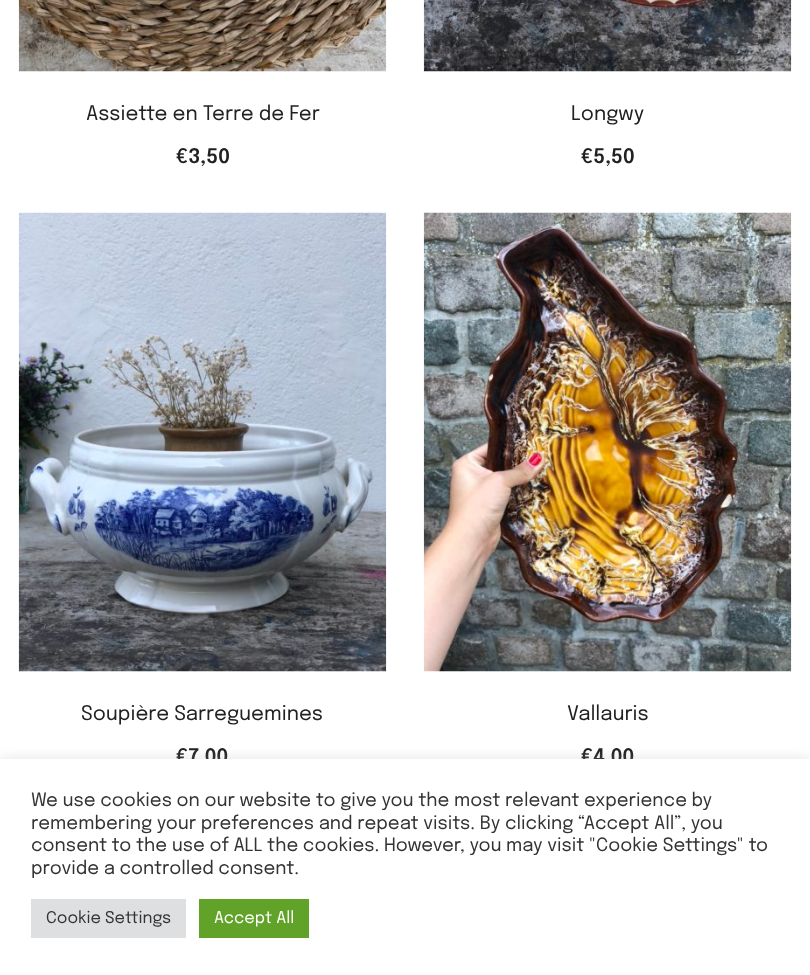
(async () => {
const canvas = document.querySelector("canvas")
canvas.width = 810
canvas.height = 975
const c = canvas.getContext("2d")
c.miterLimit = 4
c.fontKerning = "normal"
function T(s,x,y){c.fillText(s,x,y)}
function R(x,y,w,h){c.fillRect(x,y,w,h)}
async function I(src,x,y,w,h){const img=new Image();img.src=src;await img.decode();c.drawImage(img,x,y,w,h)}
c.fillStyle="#fff"
R(0,0,810,975)
await I("1.png",18,0,369,72)
c.font="20px Epilogue"
c.fillStyle="#212121"
T("Assiette en Terre de Fer",86,120)
c.font="600 20px Epilogue"
T("€3,50",176,163)
await I("2.png",423,0,369,72)
c.font="20px Epilogue"
T("Longwy",571,120)
c.font="600 20px Epilogue"
T("€5,50",581,163)
await I("3.png",18,212,369,460)
c.font="20px Epilogue"
T("Soupière Sarreguemines",81,720)
c.font="600 20px Epilogue"
T("€7,00",176,763)
await I("4.png",423,212,369,460)
c.font="20px Epilogue"
T("Vallauris",567,720)
c.font="600 20px Epilogue"
T("€4,00",581,763)
c.fillStyle="#acabab4d"
c.filter="blur(6px)"
c.beginPath()
c.rect(0,758,810,216)
c.fill()
c.filter="none"
c.fillStyle="#fff"
R(0,759,810,216)
c.font="18.35px Epilogue"
c.fillStyle="#333"
T("We use cookies on our website to give you the most relevant experience by",31,806)
T("remembering your preferences and repeat visits. By clicking “Accept All”, you",31,829)
T("consent to the use of ALL the cookies. However, you may visit \"Cookie Settings\" to",31,851)
T("provide a controlled consent.",31,874)
c.fillStyle="#dedfe0"
R(31,899,155,39)
c.font="16.25px Epilogue"
c.fillStyle="#333"
T("Cookie Settings",46,923)
c.fillStyle="#61a229"
R(199,899,110,39)
c.fillStyle="#fff"
T("Accept All",214,923)
})()
